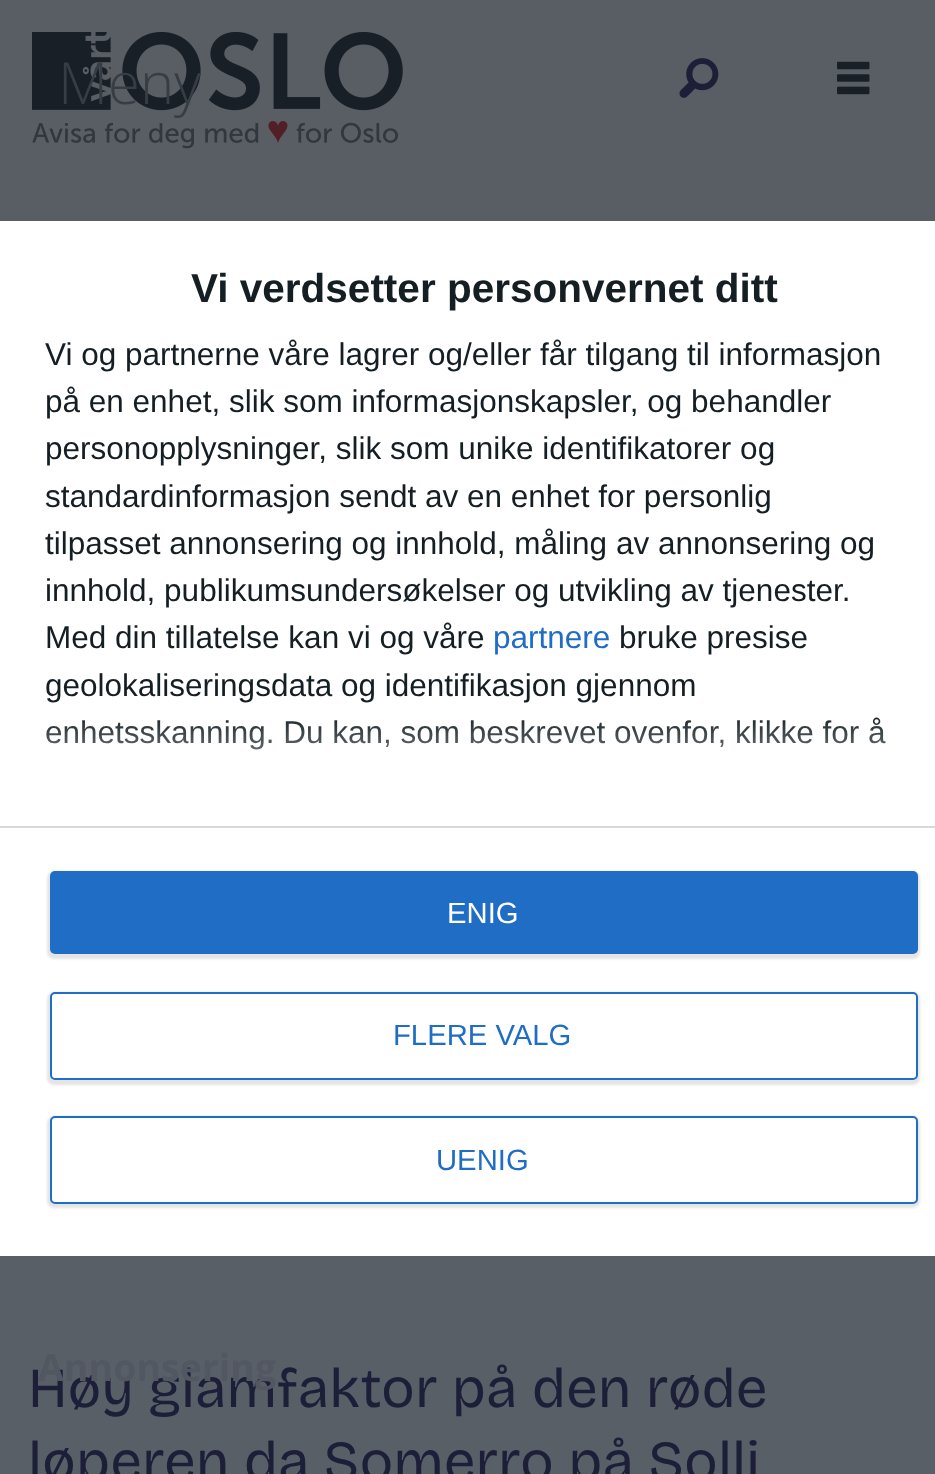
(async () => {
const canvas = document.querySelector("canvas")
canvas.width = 935
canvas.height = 1474
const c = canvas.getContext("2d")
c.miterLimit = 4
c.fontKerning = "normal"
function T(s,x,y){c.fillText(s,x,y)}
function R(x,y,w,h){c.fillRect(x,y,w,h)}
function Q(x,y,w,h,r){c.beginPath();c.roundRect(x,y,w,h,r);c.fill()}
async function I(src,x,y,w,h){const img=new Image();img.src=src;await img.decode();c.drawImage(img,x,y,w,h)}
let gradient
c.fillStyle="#595d64"
R(0,0,935,1474)
await I("1.png",32,32,371,117)
await I("2.png",679,58,40,40)
c.font="300 58px Open Sans"
c.fillStyle="#373d45"
T("Meny",58,104)
c.fillStyle="#595f67"
R(0,1256,935,218)
c.font="800 56.4px Bricolage Grotesque"
c.fillStyle="#1d1f39"
T("Høy glamfaktor på den røde",28,1407)
c.font="bold 37.5px Open Sans"
c.fillStyle="#525761"
T("Annonsering",38,1381)
await I("3.png",837,61,33,34)
c.fillStyle="#fff"
R(0,221,935,1035)
c.font="bold 40.5px Liberation Sans"
c.fillStyle="#141e23"
T("Vi verdsetter personvernet ditt",191,302)
c.font="31.5px Liberation Sans"
T("Vi og partnerne våre lagrer og/eller får tilgang til informasjon",45,365)
T("på en enhet, slik som informasjonskapsler, og behandler",45,412)
T("personopplysninger, slik som unike identifikatorer og",45,459)
T("standardinformasjon sendt av en enhet for personlig",45,507)
T("tilpasset annonsering og innhold, måling av annonsering og",45,554)
T("innhold, publikumsundersøkelser og utvikling av tjenester.",45,601)
T("Med din tillatelse kan vi og våre",45,648)
c.fillStyle="#206dc5"
T("partnere",493,648)
c.fillStyle="#141e23"
T("bruke presise",619,648)
T("geolokaliseringsdata og identifikasjon gjennom",45,696)
T("enhetsskanning. Du kan, som beskrevet ovenfor, klikke for å",45,743)
c.fillStyle="#d8d8d8"
R(0,826,935,2)
gradient = c.createLinearGradient(468,826,468,713)
gradient.addColorStop(0,"#fff")
gradient.addColorStop(1,"#ffffff00")
c.fillStyle = gradient
R(46,717,840,33)
c.fillStyle="#0000001a"
c.filter="blur(1px)"
c.beginPath()
c.roundRect(47,871,873,88,7)
c.fill()
c.filter="none"
c.fillStyle="#206dc5"
Q(50,871,868,83,5)
c.font="29.25px Liberation Sans"
c.fillStyle="#fff"
T("ENIG",447,923)
c.fillStyle="#0000001a"
c.filter="blur(1px)"
c.beginPath()
c.roundRect(47,992,873,93,7)
c.fill()
c.filter="none"
c.fillStyle="#fff"
c.beginPath()
c.roundRect(51,993,866,86,4)
c.fill()
c.strokeStyle="#206dc5"
c.lineWidth=2
c.stroke()
c.fillStyle="#206dc5"
T("FLERE VALG",393,1045)
c.fillStyle="#0000001a"
c.filter="blur(1px)"
c.beginPath()
c.roundRect(47,1116,873,92,7)
c.fill()
c.filter="none"
c.fillStyle="#fff"
c.beginPath()
c.roundRect(51,1117,866,86,4)
c.fill()
c.stroke()
c.fillStyle="#206dc5"
T("UENIG",436,1170)
c.font="800 56.4px Bricolage Grotesque"
c.fillStyle="#1d1f39"
T("løperen da Somerro på Solli",28,1480)
})()
